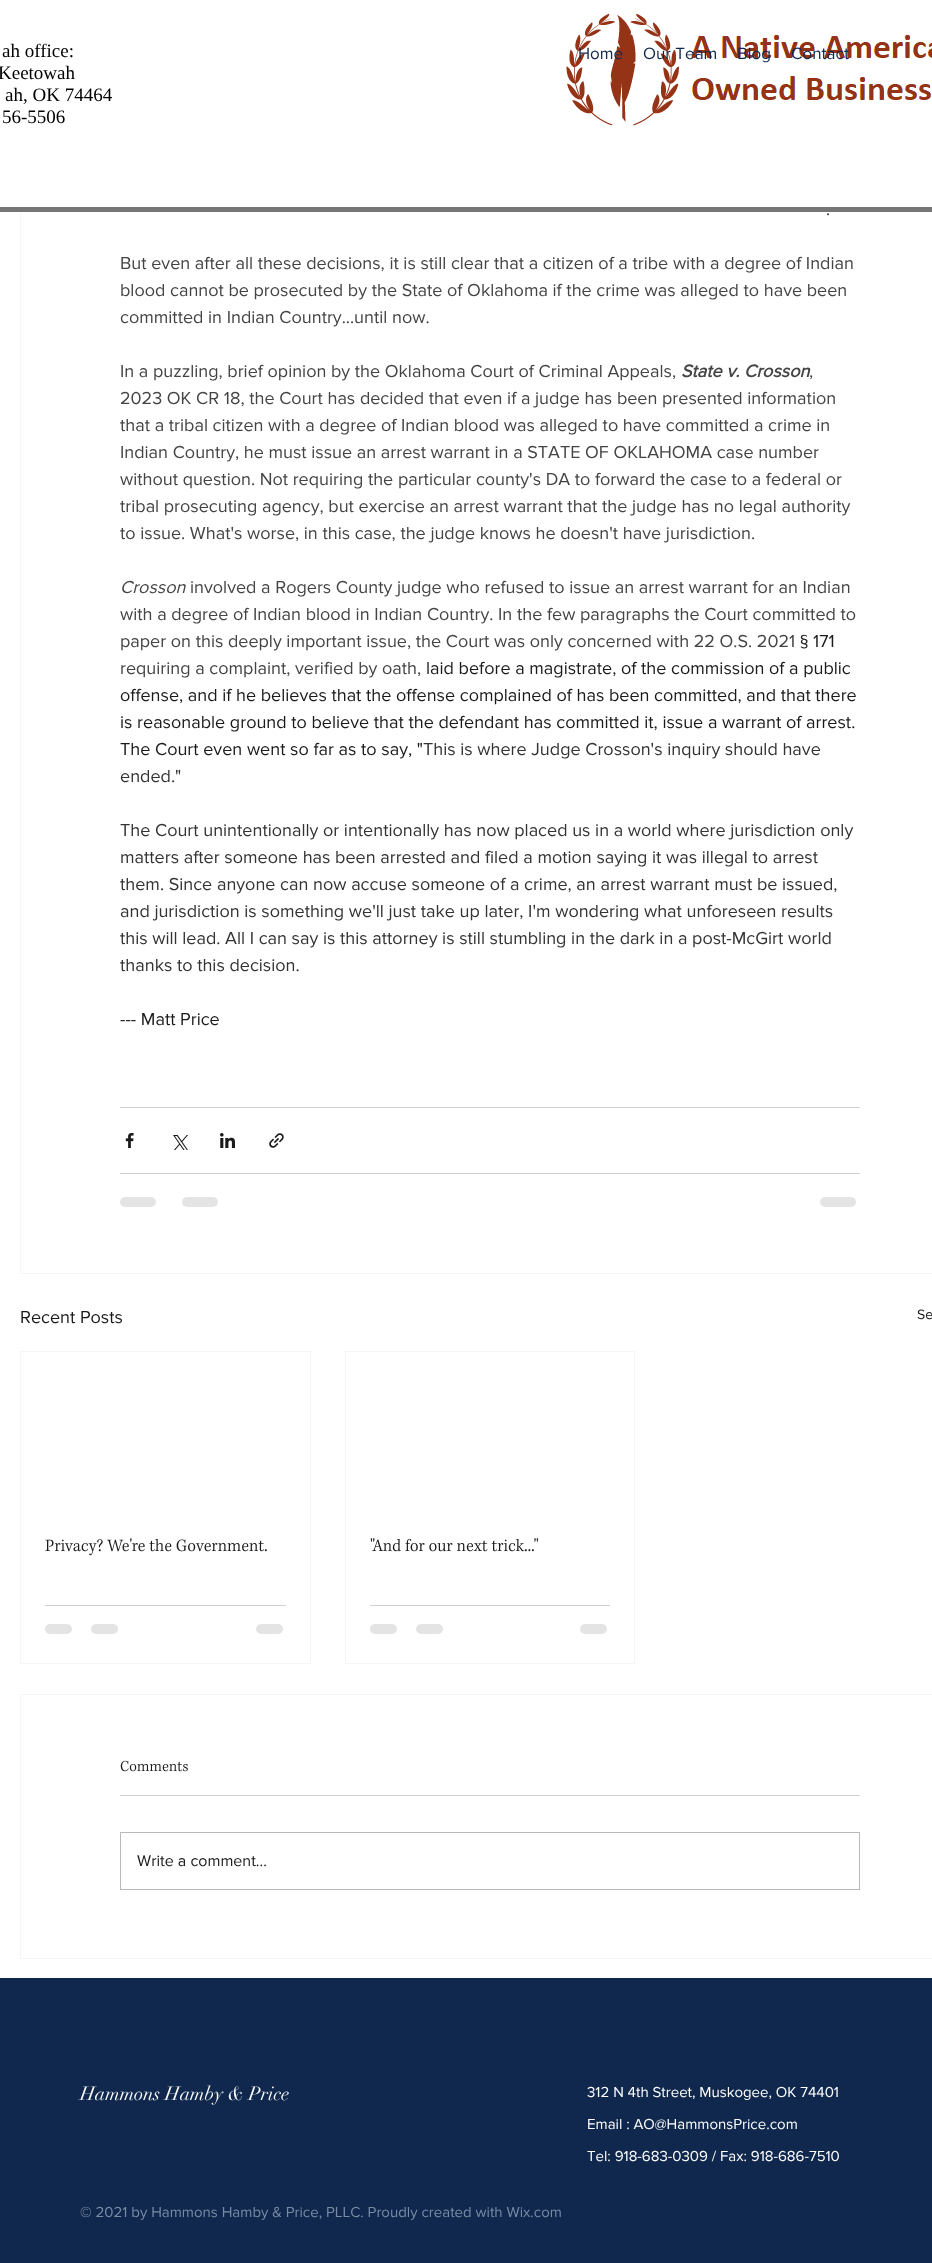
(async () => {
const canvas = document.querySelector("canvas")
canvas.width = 932
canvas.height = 2263
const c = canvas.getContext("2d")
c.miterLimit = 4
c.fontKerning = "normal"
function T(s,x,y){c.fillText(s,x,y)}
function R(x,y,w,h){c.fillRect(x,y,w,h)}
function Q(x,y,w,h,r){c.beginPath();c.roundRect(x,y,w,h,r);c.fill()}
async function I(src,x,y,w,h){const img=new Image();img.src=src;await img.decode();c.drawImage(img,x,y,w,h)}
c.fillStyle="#fff"
R(0,0,932,2263)
c.strokeStyle="#f4f5f7"
c.strokeRect(20.5,-.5,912,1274)
R(20,0,1,207)
c.fillStyle="#767676"
R(0,207,932,5)
c.font="19px Liberation Serif"
c.fillStyle="#000"
T("ah office:",2,57)
T("Keetowah",-2,79)
T("ah, OK 74464",5,101)
T("56-5506",2,123)
await I("1.png",566,13,366,113)
c.font="17px 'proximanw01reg'"
c.fillStyle="#10284d"
T("Home",578,59)
T("Our Team",643,59)
T("Blog",737,59)
T("Contact",791,59)
c.font="18px 'proximanw01reg'"
c.fillStyle="#444"
T(".",826,215)
T("But even after all these decisions, it is still clear that a citizen of a tribe with a degree of Indian",120,269)
T("blood cannot be prosecuted by the State of Oklahoma if the crime was alleged to have been",120,296)
T("committed in Indian Country...until now.",120,323)
T("In a puzzling, brief opinion by the Oklahoma Court of Criminal Appeals,",120,377)
c.font="italic bold 18px 'proximanw01reg'"
T("State v. Crosson",681,377)
c.font="18px 'proximanw01reg'"
T(",",809,377)
T("2023 OK CR 18, the Court has decided that even if a judge has been presented information",120,404)
T("that a tribal citizen with a degree of Indian blood was alleged to have committed a crime in",120,431)
T("Indian Country, he must issue an arrest warrant in a STATE OF OKLAHOMA case number",120,458)
T("without question. Not requiring the particular county's DA to forward the case to a federal or",120,485)
T("tribal prosecuting agency, but exercise an arrest warrant that the judge has no legal authority",120,512)
T("to issue. What's worse, in this case, the judge knows he doesn't have jurisdiction.",120,539)
c.font="italic 18px 'proximanw01reg'"
T("Crosson",120,593)
c.font="18px 'proximanw01reg'"
T("involved a Rogers County judge who refused to issue an arrest warrant for an Indian",190,593)
T("with a degree of Indian blood in Indian Country. In the few paragraphs the Court committed to",120,620)
T("paper on this deeply important issue, the Court was only concerned with 22 O.S. 2021",120,647)
c.fillStyle="#1a1a1a"
T("§ 171",800,647)
c.fillStyle="#444"
T("requiring a complaint, verified by oath,",120,674)
c.fillStyle="#1a1a1a"
T("laid before a magistrate, of the commission of a public",426,674)
T("offense, and if he believes that the offense complained of has been committed, and that there",120,701)
T("is reasonable ground to believe that the defendant has committed it, issue a warrant of arrest.",120,728)
T("The Court even went so far as to say, \"",120,755)
c.fillStyle="#333"
T("This is where Judge Crosson's inquiry should have",423,755)
T("ended.\"",120,782)
T("The Court unintentionally or intentionally has now placed us in a world where jurisdiction only",120,836)
T("matters after someone has been arrested and filed a motion saying it was illegal to arrest",120,863)
T("them. Since anyone can now accuse someone of a crime, an arrest warrant must be issued,",120,890)
T("and jurisdiction is something we'll just take up later, I'm wondering what unforeseen results",120,917)
T("this will lead. All I can say is this attorney is still stumbling in the dark in a post-McGirt world",120,944)
T("thanks to this decision.",120,971)
c.fillStyle="#1a1a1a"
T("--- Matt Price",120,1025)
c.fillStyle="#d1d1d1"
R(120,1107,740,1)
await I("2.png",125,1133,9,15)
await I("3.png",173,1135,15,15)
await I("4.png",220,1133,15,15)
await I("5.png",269,1133,15,15)
R(120,1173,740,1)
c.fillStyle="#e4e4e4"
Q(120,1197,36,10,5)
Q(182,1197,36,10,5)
Q(820,1197,36,10,5)
c.fillStyle="#1a1a1a"
T("Recent Posts",20,1323)
c.font="14px 'proximanw01reg'"
T("Se",917,1319)
c.strokeRect(20.5,1351.5,290,312)
await I("6.png",45,1538,222,18)
c.fillStyle="#d1d1d1"
R(45,1605,241,1)
c.fillStyle="#e4e4e4"
Q(45,1624,27,10,5)
Q(91,1624,27,10,5)
Q(256,1624,27,10,5)
c.strokeRect(345.5,1351.5,289,312)
await I("7.png",370,1538,169,14)
c.fillStyle="#d1d1d1"
R(370,1605,240,1)
c.fillStyle="#e4e4e4"
Q(370,1624,27,10,5)
Q(416,1624,27,10,5)
Q(580,1624,27,10,5)
c.strokeRect(20.5,1694.5,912,264)
await I("8.png",120,1760,68,12)
c.fillStyle="#d1d1d1"
R(120,1795,740,1)
c.strokeStyle="#bababa"
c.strokeRect(120.5,1832.5,739,57)
c.font="16px 'proximanw01reg'"
c.fillStyle="#1a1a1a"
T("Write a comment...",137,1866)
c.fillStyle="#10284d"
R(0,1978,932,285)
c.font="19px didot"
c.fillStyle="#fff"
T("Hammons Hamby & Price",80,2100)
c.font="15px 'proximanw01reg'"
c.fillStyle="#7a8ba6"
T("© 2021 by Hammons Hamby & Price, PLLC. Proudly created with Wix.com",80,2217)
c.fillStyle="#fff"
T("312 N 4th Street, Muskogee, OK 74401",587,2097)
T("Email : AO@HammonsPrice.com",587,2129)
T("Tel: 918-683-0309 / Fax: 918-686-7510",587,2161)
})()
